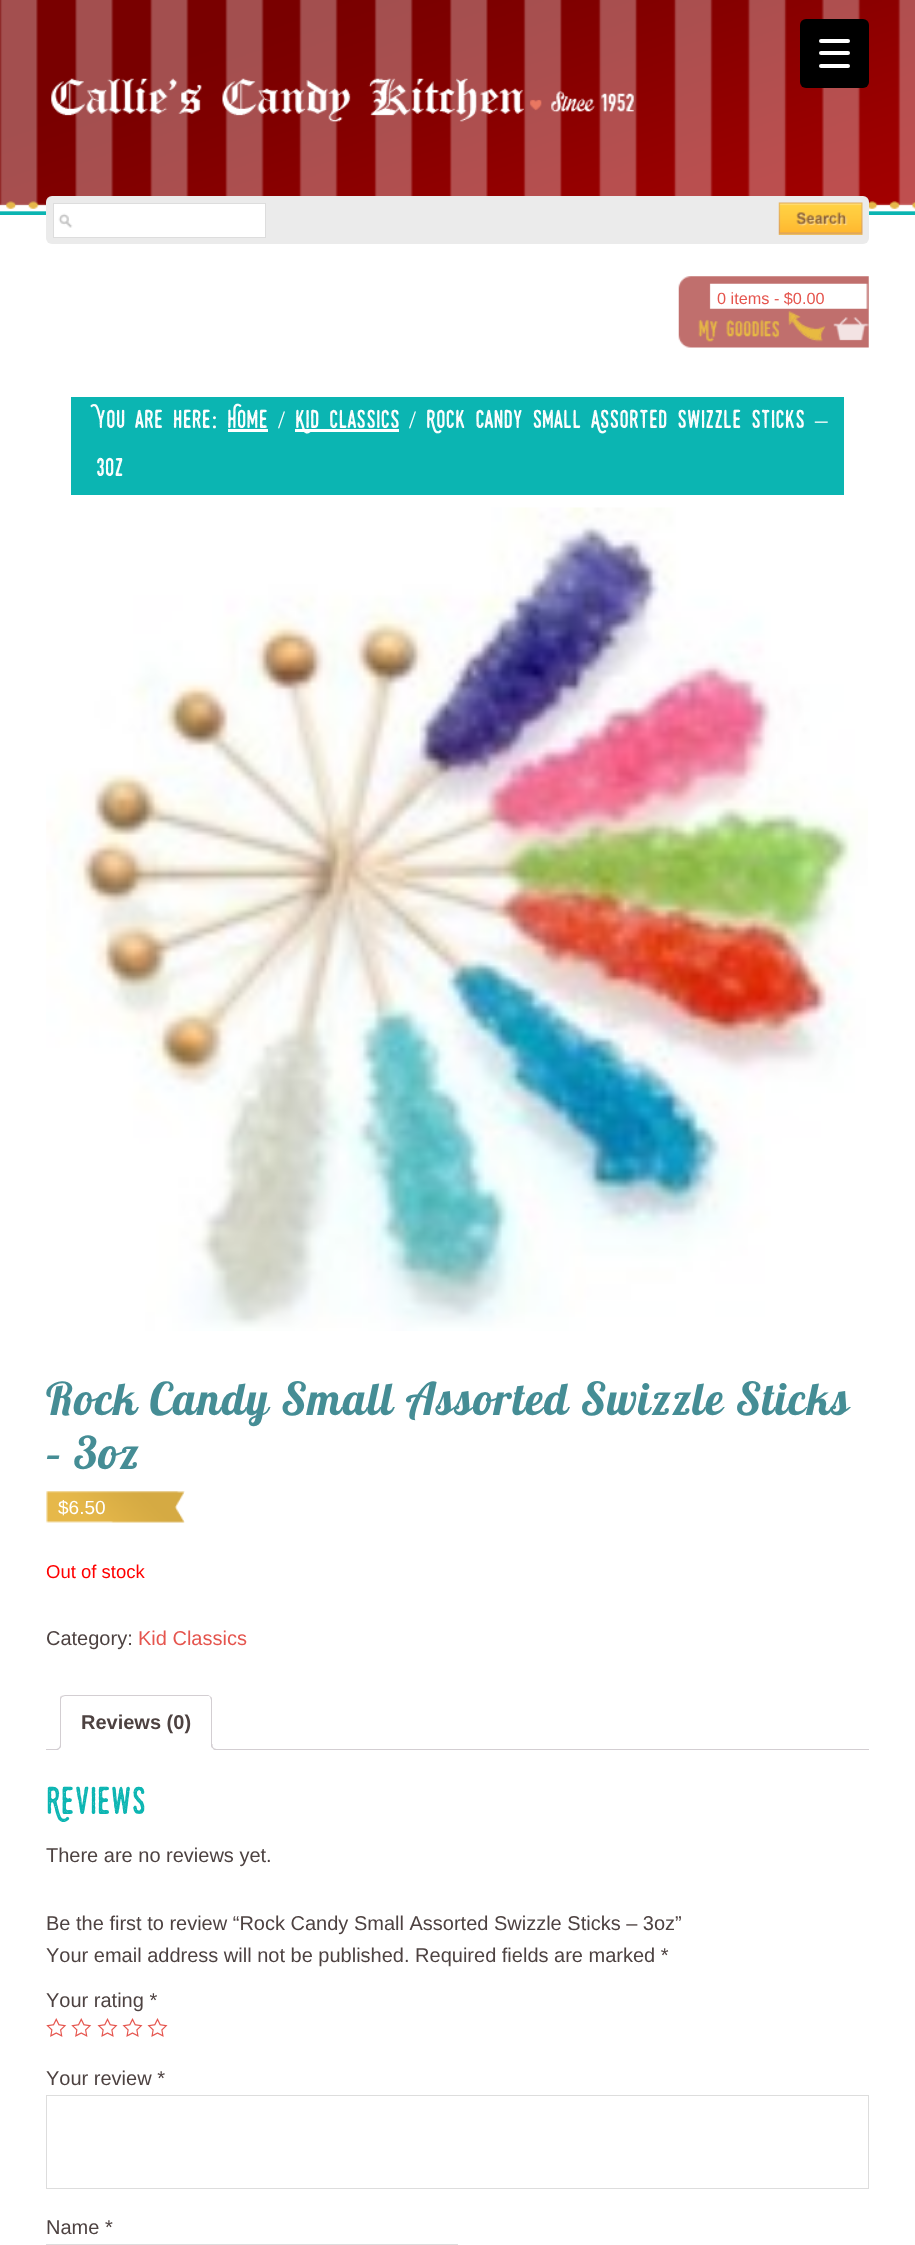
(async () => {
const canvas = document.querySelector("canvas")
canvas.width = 915
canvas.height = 2245
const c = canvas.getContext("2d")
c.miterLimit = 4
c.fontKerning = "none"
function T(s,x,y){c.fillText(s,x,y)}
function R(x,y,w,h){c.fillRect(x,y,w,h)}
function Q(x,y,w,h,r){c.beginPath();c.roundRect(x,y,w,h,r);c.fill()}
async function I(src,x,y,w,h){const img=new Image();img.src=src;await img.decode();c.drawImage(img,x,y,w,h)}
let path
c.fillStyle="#fff"
R(0,0,915,2245)
await I("1.png",0,0,915,215)
c.fillStyle="#000"
Q(800,19,69,69,6)
c.fillStyle="#fff"
Q(819,51,31,4,2)
Q(819,39,31,4,2)
Q(819,64,31,4,2)
await I("2.png",51,78,583,44)
c.fillStyle="#ebebeb"
Q(46,196,823,48,6)
c.fillStyle="#fff"
R(54,204,211,33)
await I("3.png",58,213,15,15)
c.strokeStyle="#ddd"
c.strokeRect(53.5,203.5,212,34)
await I("4.png",778,202,85,33)
await I("5.png",678,276,191,72)
c.font="16.25px Liberation Sans"
c.fillStyle="#e5554e"
T("0 items - $0.00",717,304)
c.fillStyle="#0bb5b2"
R(71,397,773,98)
c.font="25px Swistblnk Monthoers"
c.fillStyle="#fff"
T("You are here",96,428)
c.font="25px Liberation Serif"
T(":",211,428)
c.font="25px Swistblnk Monthoers"
T("Home",227,428)
R(228,429,40,3)
c.font="25px Liberation Serif"
T("/",278,428)
R(295,429,104,3)
c.font="25px Swistblnk Monthoers"
T("Kid Classics",295,428)
c.font="25px Liberation Serif"
T("/",409,428)
c.font="25px Swistblnk Monthoers"
T("Rock Candy Small Assorted Swizzle Sticks",426,428)
c.font="25px Liberation Serif"
T("–",815,428)
c.font="25px Swistblnk Monthoers"
T("3oz",96,476)
await I("6.png",46,507,822,824)
c.letterSpacing="1.25px"
c.font="45px Lobster"
c.fillStyle="#458d95"
T("Rock Candy Small Assorted Swizzle Sticks",46,1415)
T("– 3oz",46,1469)
await I("7.png",46,1491,139,32)
c.letterSpacing="0px"
c.font="19px Liberation Sans"
c.fillStyle="#fff"
T("$6.50",58,1514)
c.font="18.5px Liberation Sans"
c.fillStyle="#f00"
T("Out of stock",46,1578)
c.font="20px Liberation Sans"
c.fillStyle="#4d4241"
T("Category:",46,1645)
c.fillStyle="#e5554e"
T("Kid Classics",138,1645)
c.fillStyle="#d3ced2"
R(46,1749,823,1)
c.fillStyle="#fff"
c.beginPath()
c.roundRect(60,1695,153,55,[5,5,0,0])
c.fill()
c.fillStyle="#d3ced2"
path = new Path2D("M65 1695c-1 0-3 1-4 1l1 1l3-1h144l1 1h1c-1-1-2-2-3-2z")
c.fill(path)
path = new Path2D("M211 1697c1 0 1 2 1 3v50l-1-2v-48l-1-3z")
c.fill(path)
c.fillStyle="#fff"
path = new Path2D("M212 1750l-1-2v1h-150l-1 1z")
c.fill(path)
c.fillStyle="#d3ced2"
path = new Path2D("M60 1750l1-1v-50l1-2l-1-1c-1 1-1 2-1 4z")
c.fill(path)
c.font="bold 20px Liberation Sans"
c.fillStyle="#4d4241"
T("Reviews (0)",81,1729)
c.save()
c.beginPath()
c.rect(46,1695,823,55)
c.clip()
c.fillStyle="#fff"
path = new Path2D("M58 1749.5v3.5c5 0 6-2.5 6-7h-3c0 1.5-1.5 3-3 3.5z")
c.fill(path)
c.restore()
c.fillStyle="#d3ced2"
path = new Path2D("M55 1744h6c0 4-1.5 6-6 6zm0 0h5c0 3.5-1.5 5-5 5z")
c.fill(path,"evenodd")
c.save()
c.beginPath()
c.rect(46,1695,823,55)
c.clip()
c.fillStyle="#fff"
path = new Path2D("M209 1746c0 4.5 1 7 6 7v-3c-2-.5-3.5-2-3.5-4z")
c.fill(path)
c.restore()
path = new Path2D("M211 1744h6.5v6c-3 0-6.5-1.5-6.5-5zm1.5 0h5v5c-2.5 0-5-1-5-4z")
c.fill(path,"evenodd")
c.font="37.5px Swistblnk Monthoers"
c.fillStyle="#0bb5b2"
T("Reviews",46,1814)
c.font="20px Liberation Sans"
c.fillStyle="#4d4241"
T("There are no reviews yet.",46,1862)
T("Be the first to review “Rock Candy Small Assorted Swizzle Sticks – 3oz”",46,1930)
T("Your email address will not be published. Required fields are marked *",46,1962)
T("Your rating *",46,2007)
await I("8.png",46,2018,21,19)
await I("8.png",71,2018,21,19)
await I("9.png",97,2018,21,19)
await I("9.png",122,2018,21,19)
await I("9.png",147,2018,21,19)
T("Your review *",46,2085)
c.strokeRect(46.5,2095.5,822,93)
T("Name *",46,2234)
c.strokeRect(46.5,2244.5,411,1)
})()
